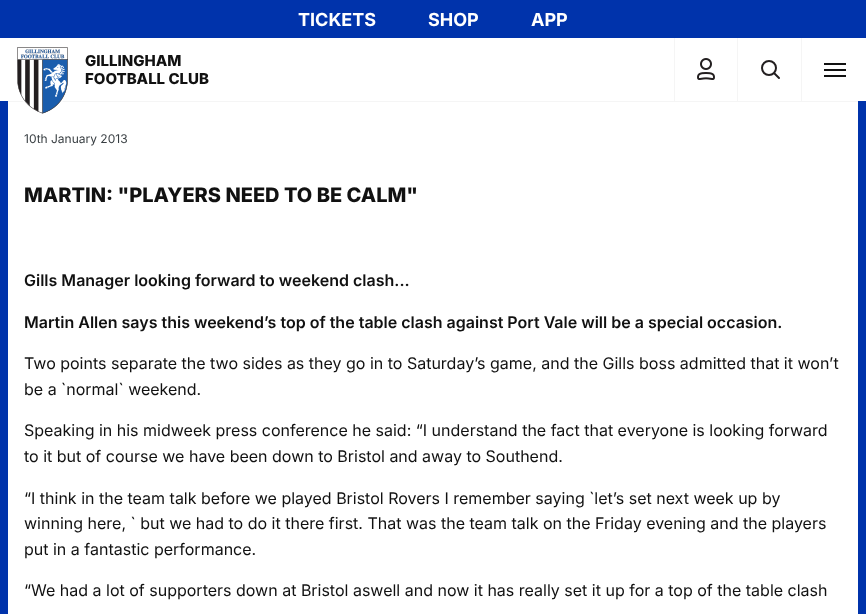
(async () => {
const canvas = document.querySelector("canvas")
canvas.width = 866
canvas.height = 614
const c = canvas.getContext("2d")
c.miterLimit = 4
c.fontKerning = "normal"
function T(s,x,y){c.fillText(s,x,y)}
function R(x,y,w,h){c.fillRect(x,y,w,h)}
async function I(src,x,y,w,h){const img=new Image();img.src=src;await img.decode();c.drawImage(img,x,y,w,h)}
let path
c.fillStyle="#fff"
R(0,0,866,614)
c.fillStyle="#f5f5f5"
R(0,101,866,1)
c.fillStyle="#0033ab"
R(0,0,8,614)
R(8,0,850,38)
c.font="bold 18px Inter"
c.fillStyle="#fff"
T("TICKETS",298,26)
T("SHOP",428,26)
T("APP",531,26)
c.fillStyle="#0033ab"
R(858,0,8,614)
c.fillStyle="#fff"
R(0,38,866,63)
await I("1.png",17,47,51,67)
c.font="800 15px Inter"
c.fillStyle="#111"
T("GILLINGHAM",85,66)
T("FOOTBALL CLUB",85,84)
R(824,69,22,2)
R(824,63,22,2)
R(824,75,22,2)
c.fillStyle="#f5f5f5"
R(737,38,1,63)
R(674,38,1,63)
await I("2.png",697,58,18,22)
R(801,38,1,63)
c.beginPath()
c.arc(769,68,7,0,7)
c.strokeStyle="#231f20"
c.lineWidth=2
c.stroke()
path = new Path2D("M774.5 73.5l4.5 4.5")
c.lineCap="round"
c.stroke(path)
c.font="12px Inter"
c.fillStyle="#383e42"
T("10th January 2013",24,143)
c.font="800 20px Inter"
c.fillStyle="#111"
T("MARTIN: \"PLAYERS NEED TO BE CALM\"",24,202)
c.font="600 16px Inter"
T("Gills Manager looking forward to weekend clash...",24,286)
T("Martin Allen says this weekend’s top of the table clash against Port Vale will be a special occasion.",24,328)
c.font="16px Inter"
T("Two points separate the two sides as they go in to Saturday’s game, and the Gills boss admitted that it won’t",24,369)
T("be a `normal` weekend.",24,395)
T("Speaking in his midweek press conference he said: “I understand the fact that everyone is looking forward",24,436)
T("to it but of course we have been down to Bristol and away to Southend.",24,462)
T("“I think in the team talk before we played Bristol Rovers I remember saying `let’s set next week up by",24,504)
T("winning here, ` but we had to do it there first. That was the team talk on the Friday evening and the players",24,529)
T("put in a fantastic performance.",24,555)
T("“We had a lot of supporters down at Bristol aswell and now it has really set it up for a top of the table clash",24,596)
})()
